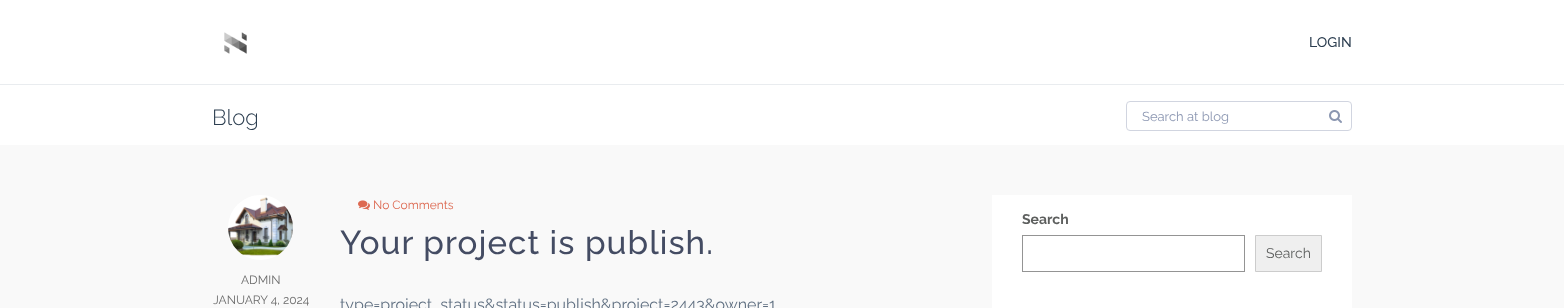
(async () => {
const canvas = document.querySelector("canvas")
canvas.width = 1564
canvas.height = 308
const c = canvas.getContext("2d")
c.miterLimit = 4
c.fontKerning = "normal"
function T(s,x,y){c.fillText(s,x,y)}
function R(x,y,w,h){c.fillRect(x,y,w,h)}
async function I(src,x,y,w,h){const img=new Image();img.src=src;await img.decode();c.drawImage(img,x,y,w,h)}
c.fillStyle="#f9f9f9"
R(0,0,1564,308)
c.fillStyle="#fff"
R(0,0,1564,84)
c.fillStyle="#e9ecef"
R(0,84,1564,1)
await I("1.png",224,32,23,22)
c.font="500 14px Raleway"
c.fillStyle="#2c3e50"
T("LOGIN",1309,47)
c.fillStyle="#fff"
R(0,85,1564,60)
c.font="300 22px Raleway"
c.fillStyle="#2c3e50"
T("Blog",212,125)
c.beginPath()
c.roundRect(1126.5,101.5,225,29,3.5)
c.strokeStyle="#d1d5e0"
c.stroke()
c.font="13px Raleway"
c.fillStyle="#8c97b2"
T("Search at blog",1142,121)
await I("2.png",1329,110,13,13)
await I("3.png",228,195,65,65)
c.font="12px Raleway"
c.fillStyle="#6b6b6b"
T("ADMIN",241,284)
T("JANUARY 4, 2024",213,304)
await I("4.png",358,200,12,10)
c.fillStyle="#dd6951"
T("No Comments",373,209)
c.letterSpacing="1.1px"
c.font="500 33px Raleway"
c.fillStyle="#444c63"
T("Your project is publish.",340,254)
c.letterSpacing="0px"
c.font="16px Raleway"
c.fillStyle="#5f6f81"
T("type=project_status&status=publish&project=2443&owner=1",340,310)
c.fillStyle="#77777733"
c.filter="blur(0.5px)"
c.beginPath()
c.rect(992,196,360,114)
c.fill()
c.filter="none"
c.fillStyle="#fff"
R(992,195,360,113)
c.font="bold 14px Raleway"
c.fillStyle="#5d5f5e"
T("Search",1022,224)
c.strokeStyle="#949494"
c.strokeRect(1022.5,235.5,222,36)
c.fillStyle="#efefef"
c.beginPath()
c.rect(1255.5,235.5,66,36)
c.fill()
c.strokeStyle="#ccc"
c.stroke()
c.font="14px Raleway"
c.fillStyle="#5d5f5e"
T("Search",1266,258)
})()
